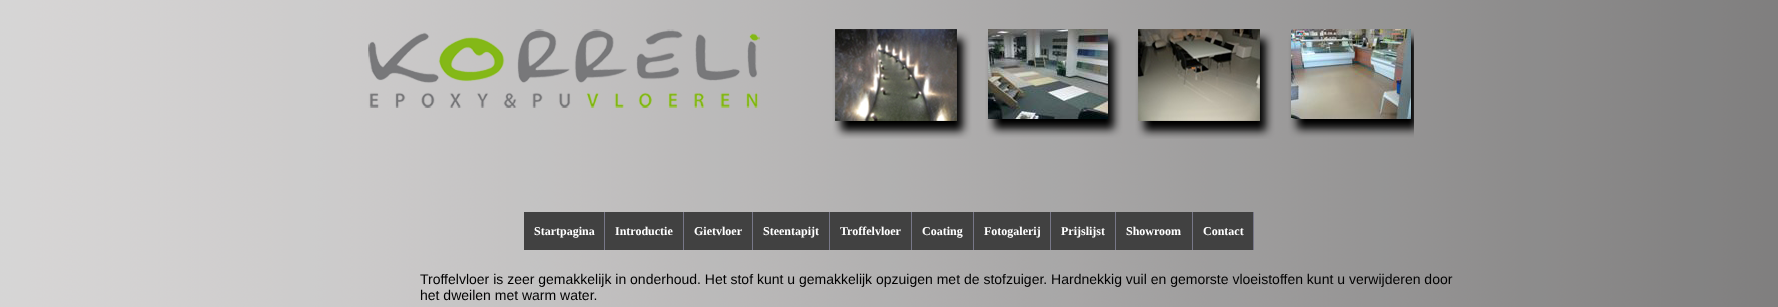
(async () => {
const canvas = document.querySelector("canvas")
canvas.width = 1778
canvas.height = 307
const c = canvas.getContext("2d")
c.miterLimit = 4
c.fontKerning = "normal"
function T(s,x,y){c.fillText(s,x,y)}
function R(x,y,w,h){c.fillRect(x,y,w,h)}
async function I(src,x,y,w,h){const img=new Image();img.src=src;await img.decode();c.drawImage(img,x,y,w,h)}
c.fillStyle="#fff"
R(0,0,1778,307)
await I("1.png",0,0,1778,307)
await I("2.png",368,29,1046,110)
c.fillStyle="#414141"
R(524,212,80,38)
c.fillStyle="#778"
R(604,212,1,38)
c.font="bold 12px Liberation Serif"
c.fillStyle="#fff"
T("Startpagina",534,235)
c.fillStyle="#414141"
R(605,212,78,38)
c.fillStyle="#778"
R(683,212,1,38)
c.fillStyle="#fff"
T("Introductie",615,235)
c.fillStyle="#414141"
R(684,212,68,38)
c.fillStyle="#778"
R(752,212,1,38)
c.fillStyle="#fff"
T("Gietvloer",694,235)
c.fillStyle="#414141"
R(753,212,76,38)
c.fillStyle="#778"
R(829,212,1,38)
c.fillStyle="#fff"
T("Steentapijt",763,235)
c.fillStyle="#414141"
R(830,212,81,38)
c.fillStyle="#778"
R(911,212,1,38)
c.fillStyle="#fff"
T("Troffelvloer",840,235)
c.fillStyle="#414141"
R(912,212,61,38)
c.fillStyle="#778"
R(973,212,1,38)
c.fillStyle="#fff"
T("Coating",922,235)
c.fillStyle="#414141"
R(974,212,76,38)
c.fillStyle="#778"
R(1050,212,1,38)
c.fillStyle="#fff"
T("Fotogalerij",984,235)
c.fillStyle="#414141"
R(1051,212,64,38)
c.fillStyle="#778"
R(1115,212,1,38)
c.fillStyle="#fff"
T("Prijslijst",1061,235)
c.fillStyle="#414141"
R(1116,212,76,38)
c.fillStyle="#778"
R(1192,212,1,38)
c.fillStyle="#fff"
T("Showroom",1126,235)
c.fillStyle="#414141"
R(1193,212,60,38)
c.fillStyle="#778"
R(1253,212,1,38)
c.fillStyle="#fff"
T("Contact",1203,235)
c.font="14px Liberation Sans"
c.fillStyle="#000"
T("Troffelvloer is zeer gemakkelijk in onderhoud. Het stof kunt u gemakkelijk opzuigen met de stofzuiger. Hardnekkig vuil en gemorste vloeistoffen kunt u verwijderen door",420,284)
T("het dweilen met warm water.",420,300)
})()
